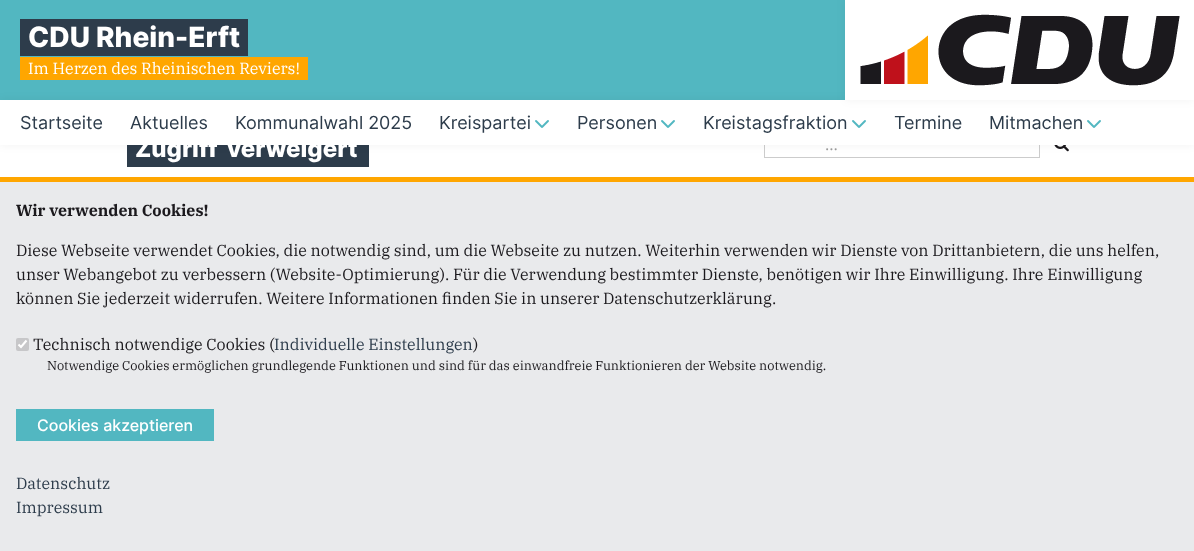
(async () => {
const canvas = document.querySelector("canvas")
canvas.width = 1194
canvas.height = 551
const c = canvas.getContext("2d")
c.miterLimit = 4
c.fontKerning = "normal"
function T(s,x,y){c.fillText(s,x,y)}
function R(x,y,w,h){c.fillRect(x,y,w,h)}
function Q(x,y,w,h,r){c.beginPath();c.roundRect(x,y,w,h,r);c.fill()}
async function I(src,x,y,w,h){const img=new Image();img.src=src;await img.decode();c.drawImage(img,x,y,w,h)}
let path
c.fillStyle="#fff"
R(0,0,1194,551)
c.fillStyle="#52b7c1"
R(0,0,845,100)
c.fillStyle="#2d3c4b"
R(20,19,228,37)
c.font="800 28px Inter"
c.fillStyle="#fff"
T("CDU Rhein-Erft",28,47)
c.fillStyle="#ffa600"
R(20,57,288,23)
c.font="16px IBM Plex Serif"
c.fillStyle="#fff"
T("Im Herzen des Rheinischen Reviers!",28,74)
c.fillStyle="#2d3c4b"
R(127,145,100,22)
R(227,145,142,22)
c.strokeStyle="#ccc"
c.strokeRect(764.5,129.5,275,28)
await I("3.png",1054,145,15,7)
c.fillStyle="#0000000d"
c.filter="blur(5px)"
c.beginPath()
c.rect(0,100,1194,45)
c.fill()
c.filter="none"
c.fillStyle="#fff"
R(0,100,1194,45)
c.fillStyle="#0000000d"
c.filter="blur(5px)"
c.beginPath()
c.rect(845,0,349,100)
c.fill()
c.filter="none"
await I("1.png",845,0,349,100)
c.font="18px Inter"
c.fillStyle="#2d3c4b"
T("Startseite",20,129)
T("Aktuelles",130,129)
T("Kommunalwahl 2025",235,129)
T("Kreispartei",439,129)
await I("2.png",535,120,14,8)
T("Personen",577,129)
await I("2.png",661,120,14,8)
T("Kreistagsfraktion",703,129)
await I("2.png",852,120,14,8)
T("Termine",894,129)
T("Mitmachen",989,129)
await I("2.png",1087,120,14,8)
c.font="800 24px Inter"
c.fillStyle="#fff"
T("Zugriff",135,157)
T("verweigert",227,157)
c.font="16px IBM Plex Serif"
c.fillStyle="#999"
T("...",825,150)
c.fillStyle="#e9eaec"
R(0,182,1194,369)
c.fillStyle="#ffa600"
R(0,177,1194,5)
c.font="bold 16px IBM Plex Serif"
c.fillStyle="#1b191d"
T("Wir verwenden Cookies!",16,216)
c.font="16px IBM Plex Serif"
T("Diese Webseite verwendet Cookies, die notwendig sind, um die Webseite zu nutzen. Weiterhin verwenden wir Dienste von Drittanbietern, die uns helfen,",16,256)
T("unser Webangebot zu verbessern (Website-Optimierung). Für die Verwendung bestimmter Dienste, benötigen wir Ihre Einwilligung. Ihre Einwilligung",16,280)
T("können Sie jederzeit widerrufen. Weitere Informationen finden Sie in unserer Datenschutzerklärung.",16,304)
c.fillStyle="#c7c7c9"
Q(16,338,13,13,2)
path = new Path2D("M18.5 344.5l2.5 2.5l5.5-6.5")
c.strokeStyle="#fff"
c.lineWidth=2.1
c.stroke(path)
c.fillStyle="#1b191d"
T("Technisch notwendige Cookies (",33,350)
c.fillStyle="#2d3c4b"
T("Individuelle Einstellungen",274,350)
c.fillStyle="#1b191d"
T(")",473,350)
c.font="12.8px IBM Plex Serif"
T("Notwendige Cookies ermöglichen grundlegende Funktionen und sind für das einwandfreie Funktionieren der Website notwendig.",47,370)
c.fillStyle="#52b7c1"
R(16,409,198,32)
c.font="500 16px Inter"
c.fillStyle="#fff"
T("Cookies akzeptieren",37,431)
c.font="16px IBM Plex Serif"
c.fillStyle="#2d3c4b"
T("Datenschutz",16,489)
T("Impressum",16,513)
})()
